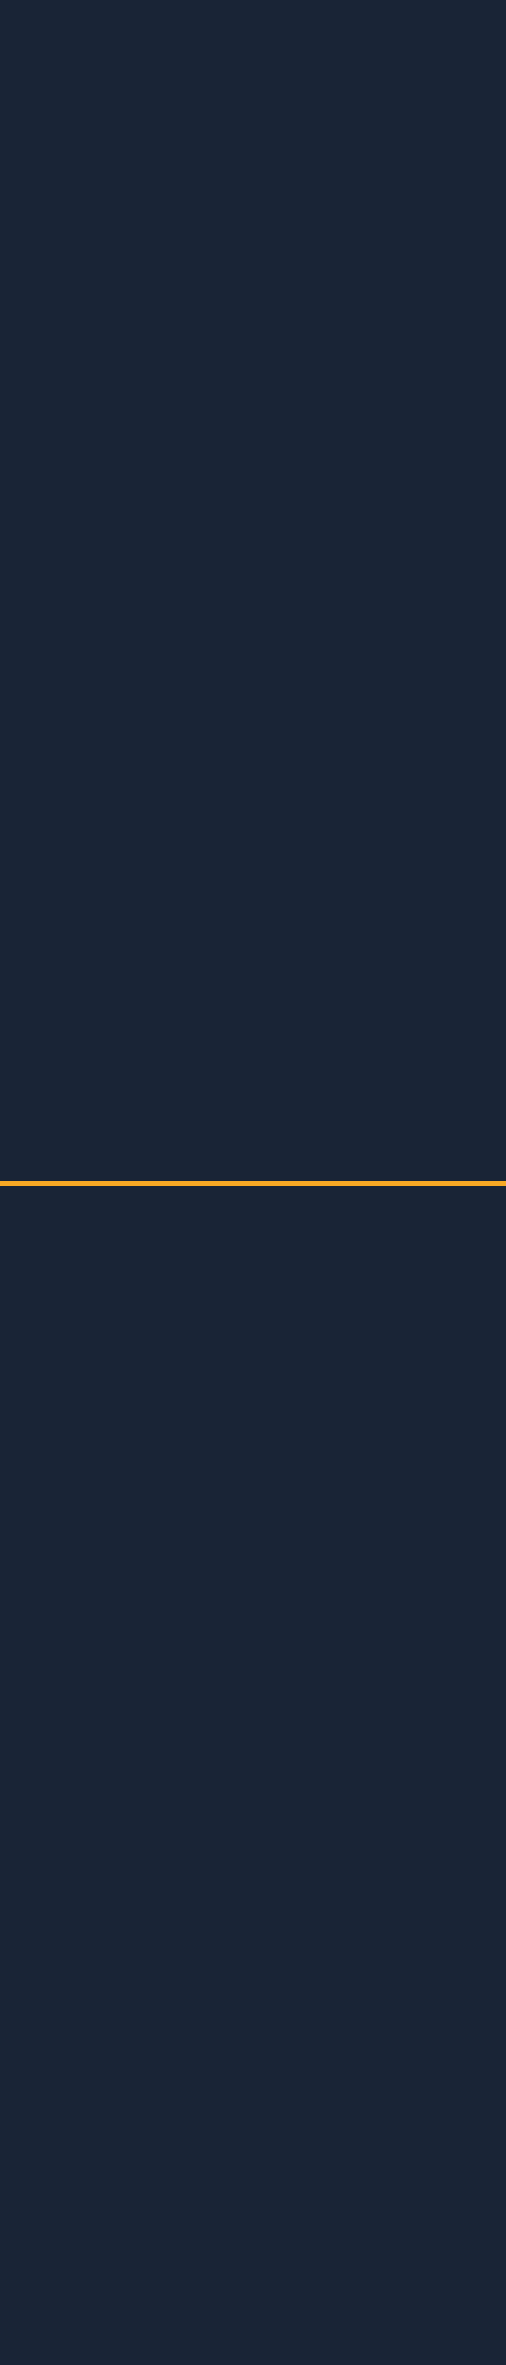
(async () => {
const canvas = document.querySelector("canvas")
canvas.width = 506
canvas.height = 2365
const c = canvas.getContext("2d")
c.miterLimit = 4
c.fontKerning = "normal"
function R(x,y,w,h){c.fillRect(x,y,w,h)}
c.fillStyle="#192436"
R(0,0,506,2365)
c.fillStyle="#f7a824"
R(0,1181,506,5)
})()
